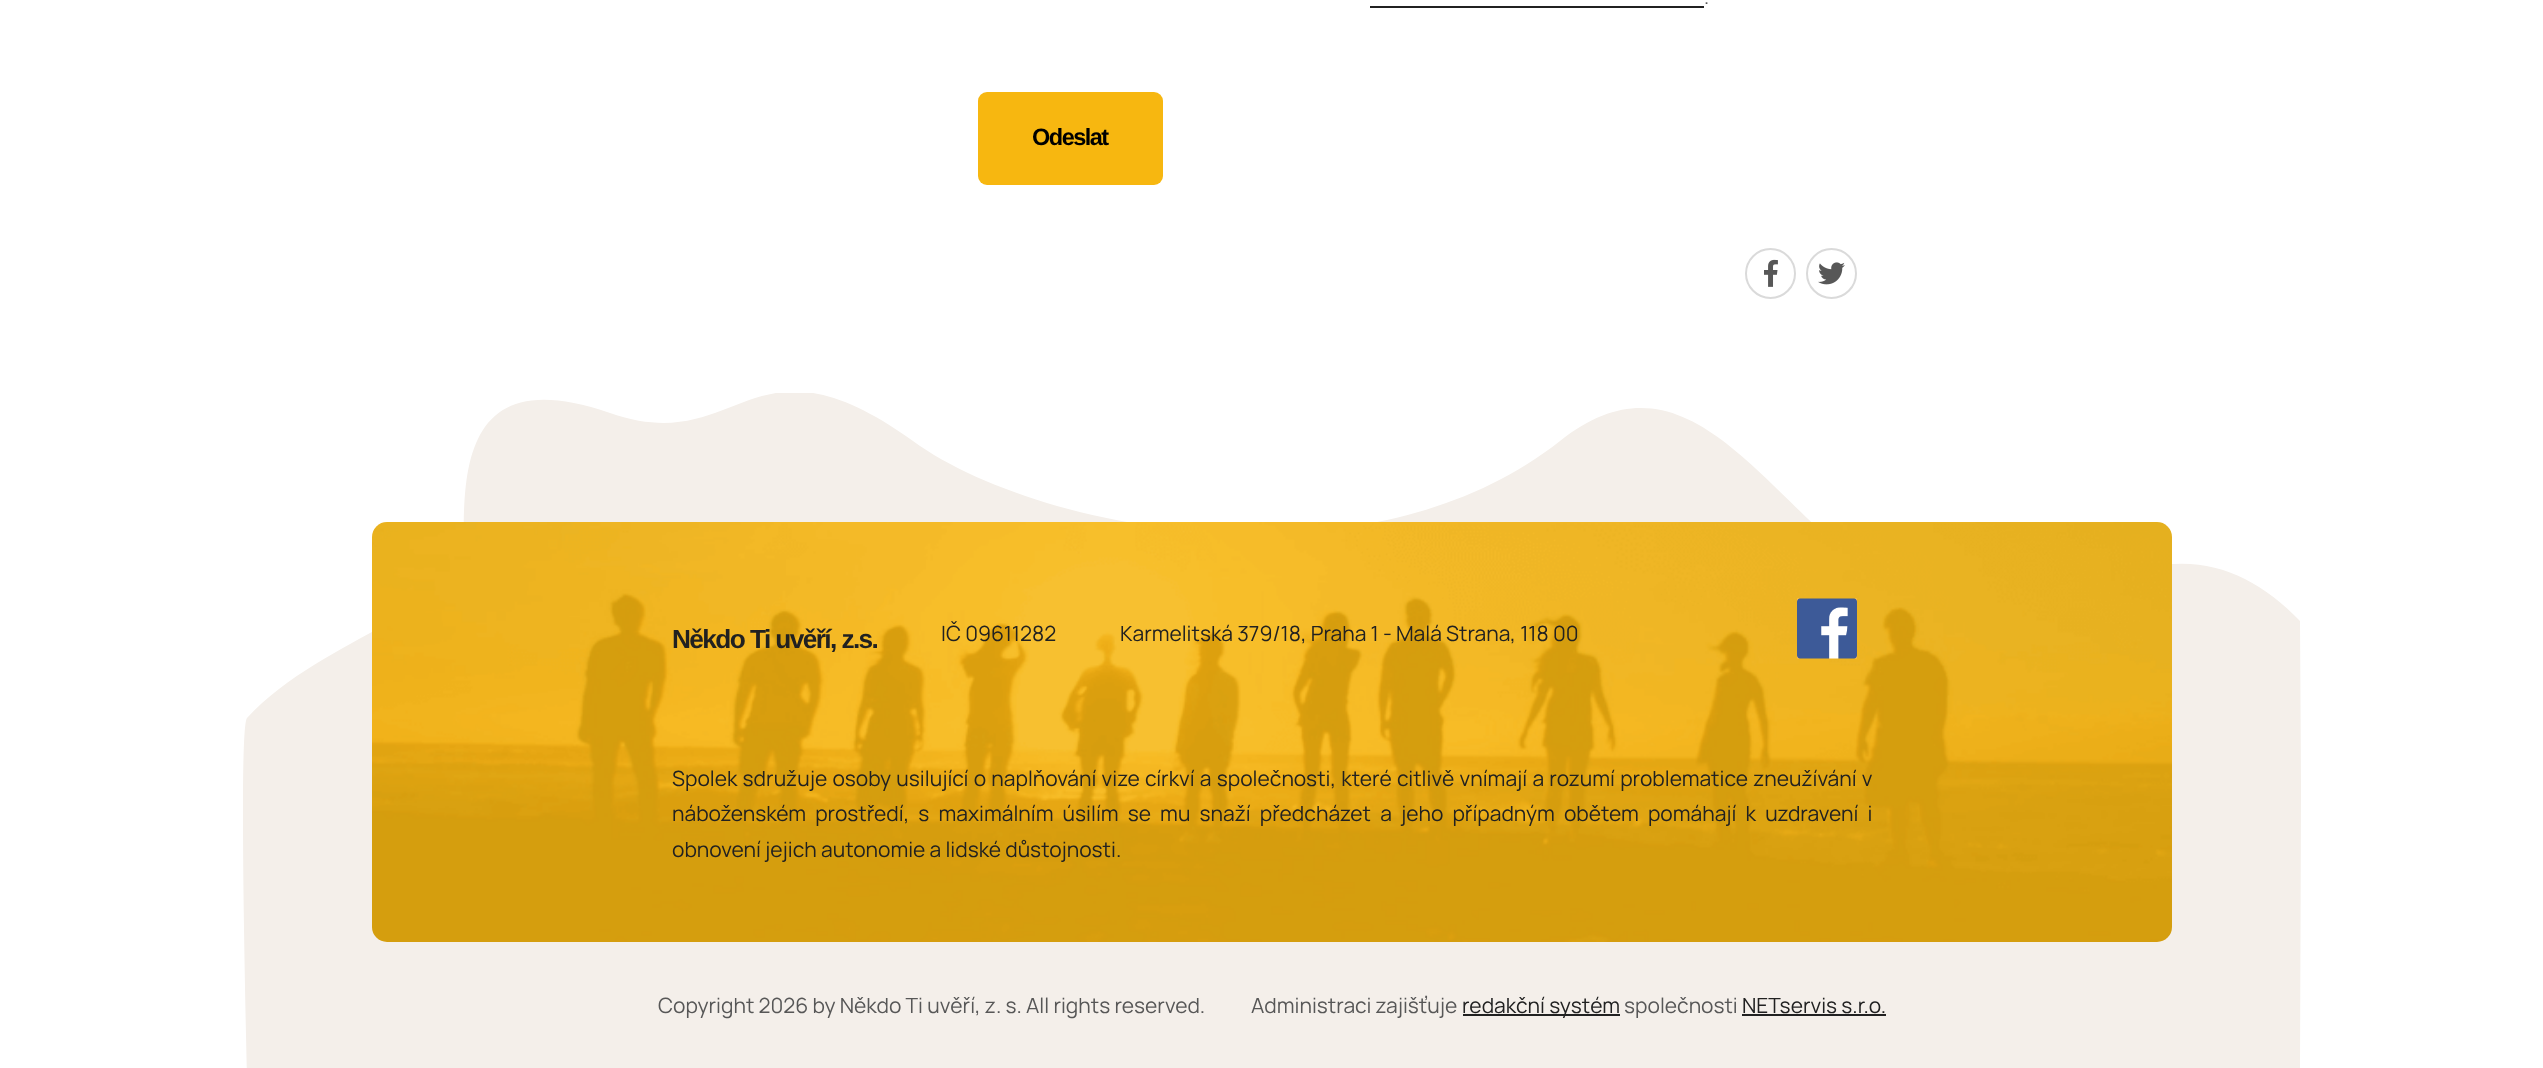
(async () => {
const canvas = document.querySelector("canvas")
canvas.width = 2543
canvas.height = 1068
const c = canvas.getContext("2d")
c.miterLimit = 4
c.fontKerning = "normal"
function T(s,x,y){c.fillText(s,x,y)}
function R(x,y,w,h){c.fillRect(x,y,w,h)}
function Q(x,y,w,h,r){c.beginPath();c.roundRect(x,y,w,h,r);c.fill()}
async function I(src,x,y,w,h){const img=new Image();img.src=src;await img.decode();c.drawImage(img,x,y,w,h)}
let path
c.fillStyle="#fff"
R(0,0,2543,1068)
c.font="20px Manrope"
c.fillStyle="#575757"
T(".",1704,4)
c.fillStyle="#212121"
R(1370,6,334,2)
c.fillStyle="#f7b710"
Q(978,92,185,93,9)
c.letterSpacing="-1.5px"
c.font="bold 23.5px Liberation Sans"
c.fillStyle="#000"
T("Odeslat",1032,145)
c.beginPath()
c.arc(1770.5,273.5,24.5,0,7)
c.strokeStyle="#dadada"
c.lineWidth=2
c.stroke()
await I("1.png",1764,259,14,28)
c.beginPath()
c.arc(1831.5,273.5,24.5,0,7)
c.stroke()
await I("2.png",1818,262,27,23)
c.save()
c.beginPath()
c.rect(243,393,2058,675)
c.clip()
c.fillStyle="#f4efea"
path = new Path2D("M247 1068c0 0-9-340 0-350c80-85 218-104 217-183c-1-87 14-168 146-122c132 46 139-90 303 28c122 89 452 154 647 0c195-154 262 291 543 144c79-41 144-19 197 36l1 168l-1 279z")
c.fill(path)
c.restore()
await I("3.png",372,522,1800,420)
c.letterSpacing="-1.6px"
c.font="bold 26.25px Liberation Sans"
c.fillStyle="#212121"
T("Někdo Ti uvěří, z.s.",672,648)
c.letterSpacing="0px"
c.font="21px Manrope"
T("IČ 09611282",941,641)
T("Karmelitská 379/18, Praha 1 - Malá Strana, 118 00",1120,641)
await I("4.png",1797,598,60,61)
c.wordSpacing="1px"
T("Spolek sdružuje osoby usilující o naplňování vize církví a společnosti, které citlivě vnímají a rozumí problematice zneužívání v",672,786)
c.wordSpacing="4.9px"
T("náboženském prostředí, s maximálním úsilím se mu snaží předcházet a jeho případným obětem pomáhají k uzdravení i",672,821)
c.wordSpacing="0px"
T("obnovení jejich autonomie a lidské důstojnosti.",672,857)
c.fillStyle="#575757"
T("Copyright 2026 by Někdo Ti uvěří, z. s. All rights reserved.",658,1013)
T("Administraci zajišťuje",1251,1013)
c.fillStyle="#212121"
R(1463,1014,157,2)
T("redakční systém",1462,1013)
c.fillStyle="#575757"
T("společnosti",1624,1013)
c.fillStyle="#212121"
T("NETservis s.r.o.",1742,1013)
R(1742,1014,144,2)
})()
